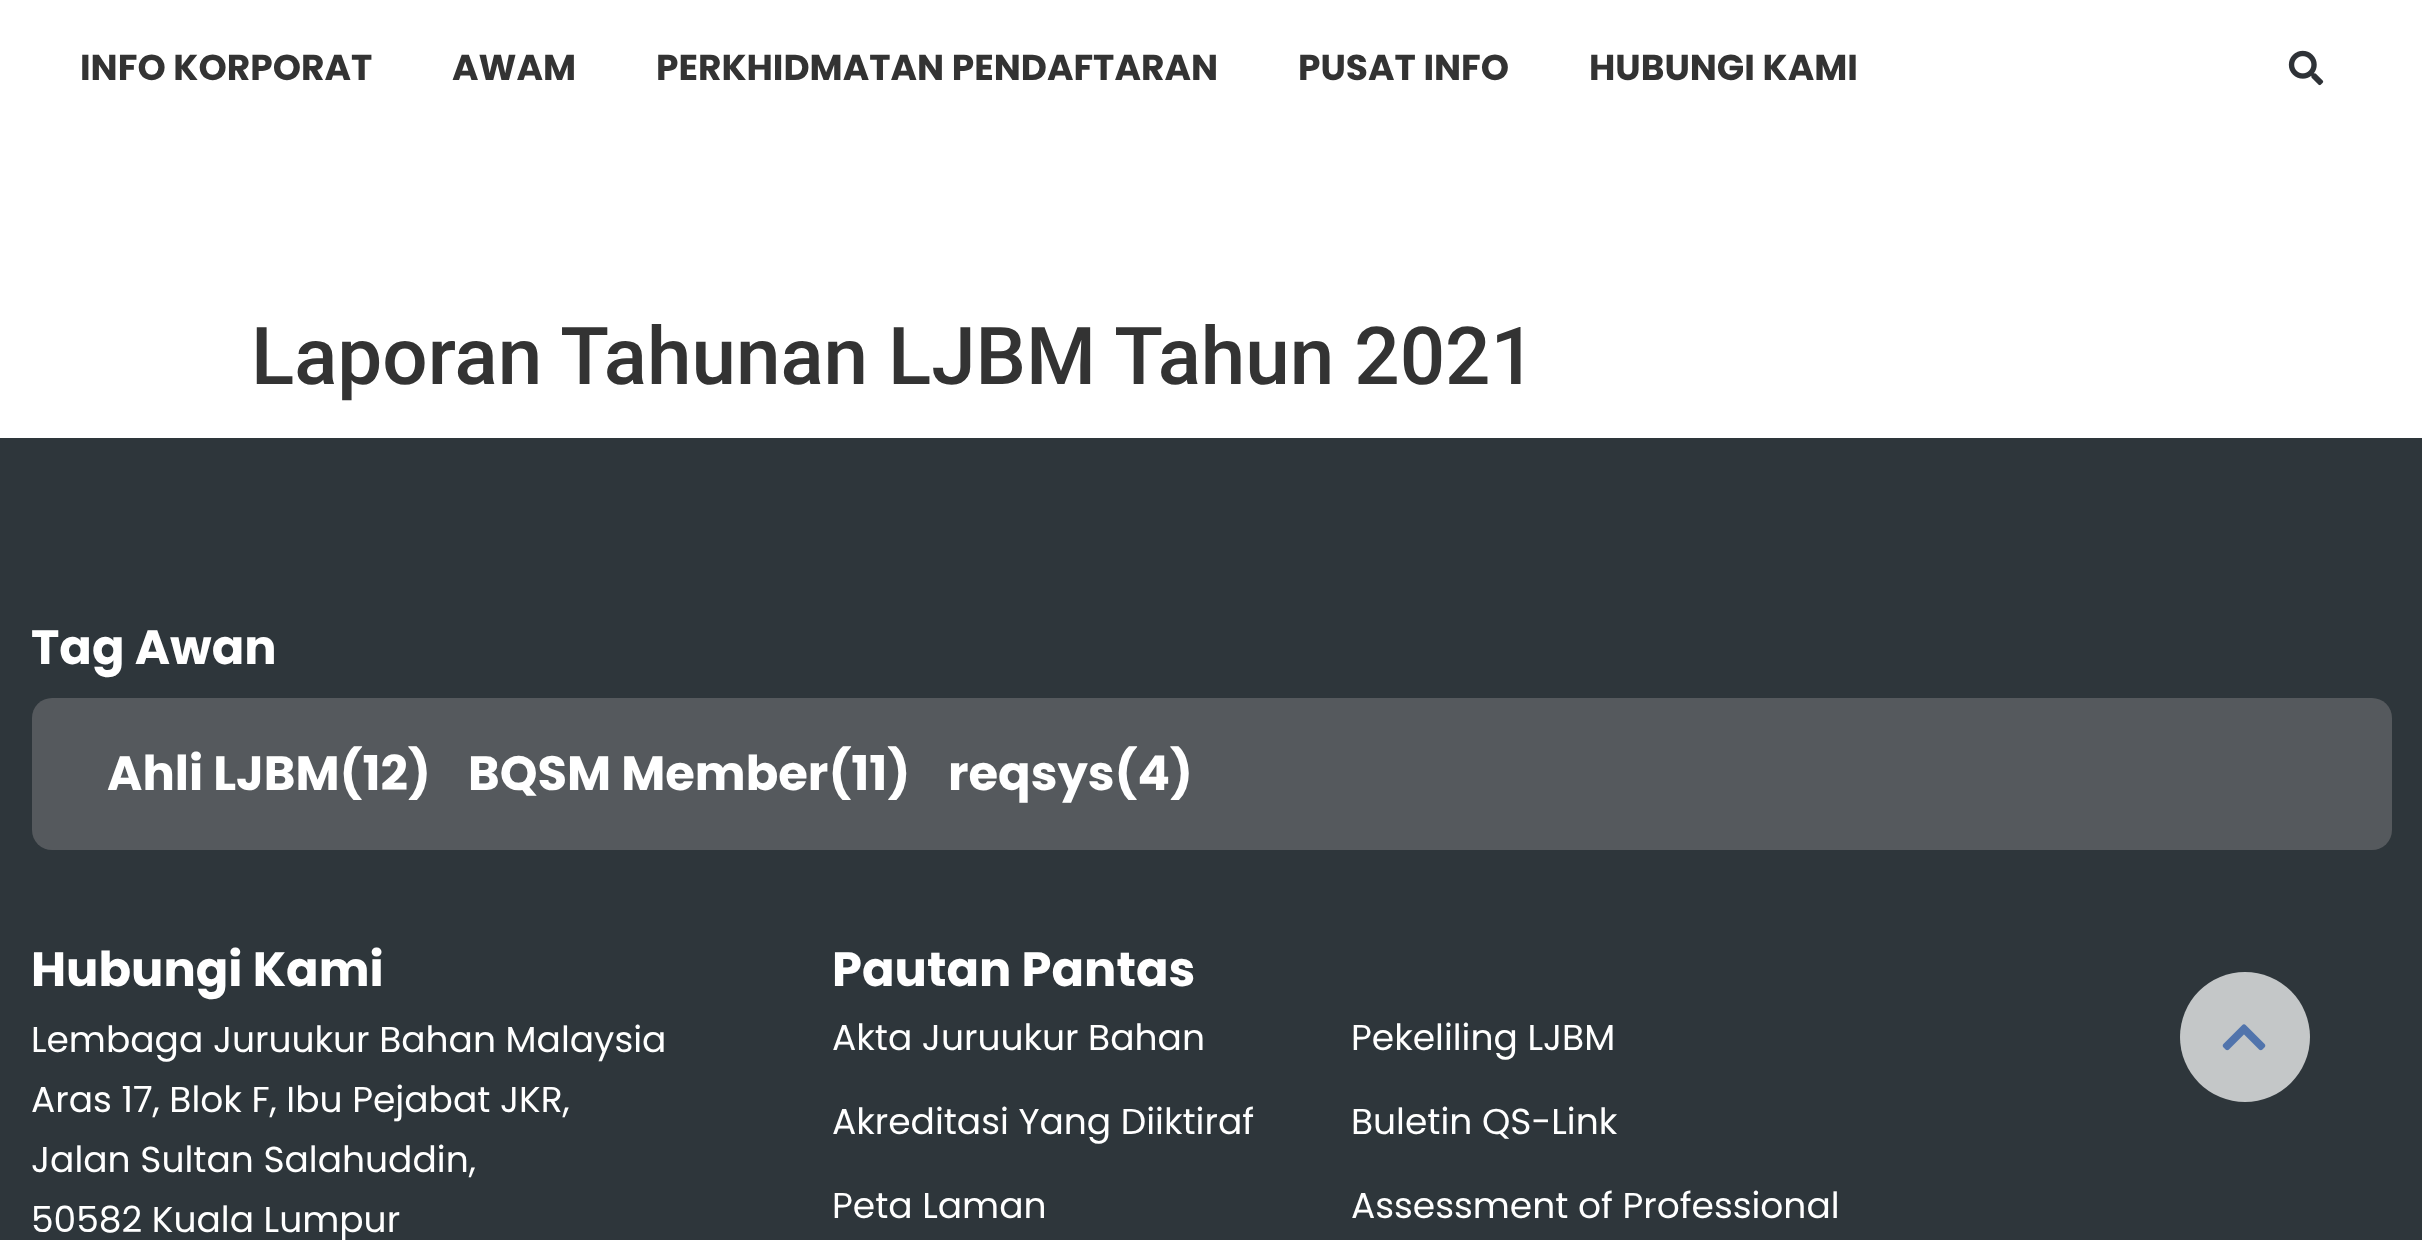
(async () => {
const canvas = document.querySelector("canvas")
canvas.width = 2422
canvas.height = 1240
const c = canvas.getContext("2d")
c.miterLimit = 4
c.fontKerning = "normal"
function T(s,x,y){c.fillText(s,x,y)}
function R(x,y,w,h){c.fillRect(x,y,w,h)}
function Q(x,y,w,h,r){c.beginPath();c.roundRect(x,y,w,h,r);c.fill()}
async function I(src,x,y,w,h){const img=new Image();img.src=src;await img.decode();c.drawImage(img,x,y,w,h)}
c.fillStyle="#fff"
R(0,0,2422,1240)
c.font="bold 36px Poppins"
c.fillStyle="#333"
T("INFO KORPORAT",80,80)
T("AWAM",452,80)
T("PERKHIDMATAN PENDAFTARAN",656,80)
T("PUSAT INFO",1298,80)
T("HUBUNGI KAMI",1589,80)
await I("1.png",2288,50,36,36)
c.font="500 80px Roboto"
T("Laporan Tahunan LJBM Tahun 2021",251,384)
c.fillStyle="#2e363b"
R(0,438,2422,802)
c.font="bold 48px Poppins"
c.fillStyle="#fff"
T("Tag Awan",31,664)
c.fillStyle="#55595d"
Q(32,698,2360,152,20)
c.fillStyle="#fff"
T("Ahli LJBM(12)",107,790)
T("BQSM Member(11)",468,790)
T("reqsys(4)",948,790)
T("Hubungi Kami",31,986)
c.font="36px Poppins"
T("Lembaga Juruukur Bahan Malaysia",31,1052)
T("Aras 17, Blok F, Ibu Pejabat JKR,",31,1112)
T("Jalan Sultan Salahuddin,",31,1172)
T("50582 Kuala Lumpur",31,1232)
c.font="bold 48px Poppins"
T("Pautan Pantas",832,986)
c.font="36px Poppins"
T("Akta Juruukur Bahan",832,1050)
T("Akreditasi Yang Diiktiraf",832,1134)
T("Peta Laman",832,1218)
T("Pekeliling LJBM",1351,1050)
T("Buletin QS-Link",1351,1134)
T("Assessment of Professional",1351,1218)
c.fillStyle="#c4c7c8"
c.beginPath()
c.arc(2245,1037,65,0,7)
c.fill()
await I("2.png",2222,1024,44,27)
})()
